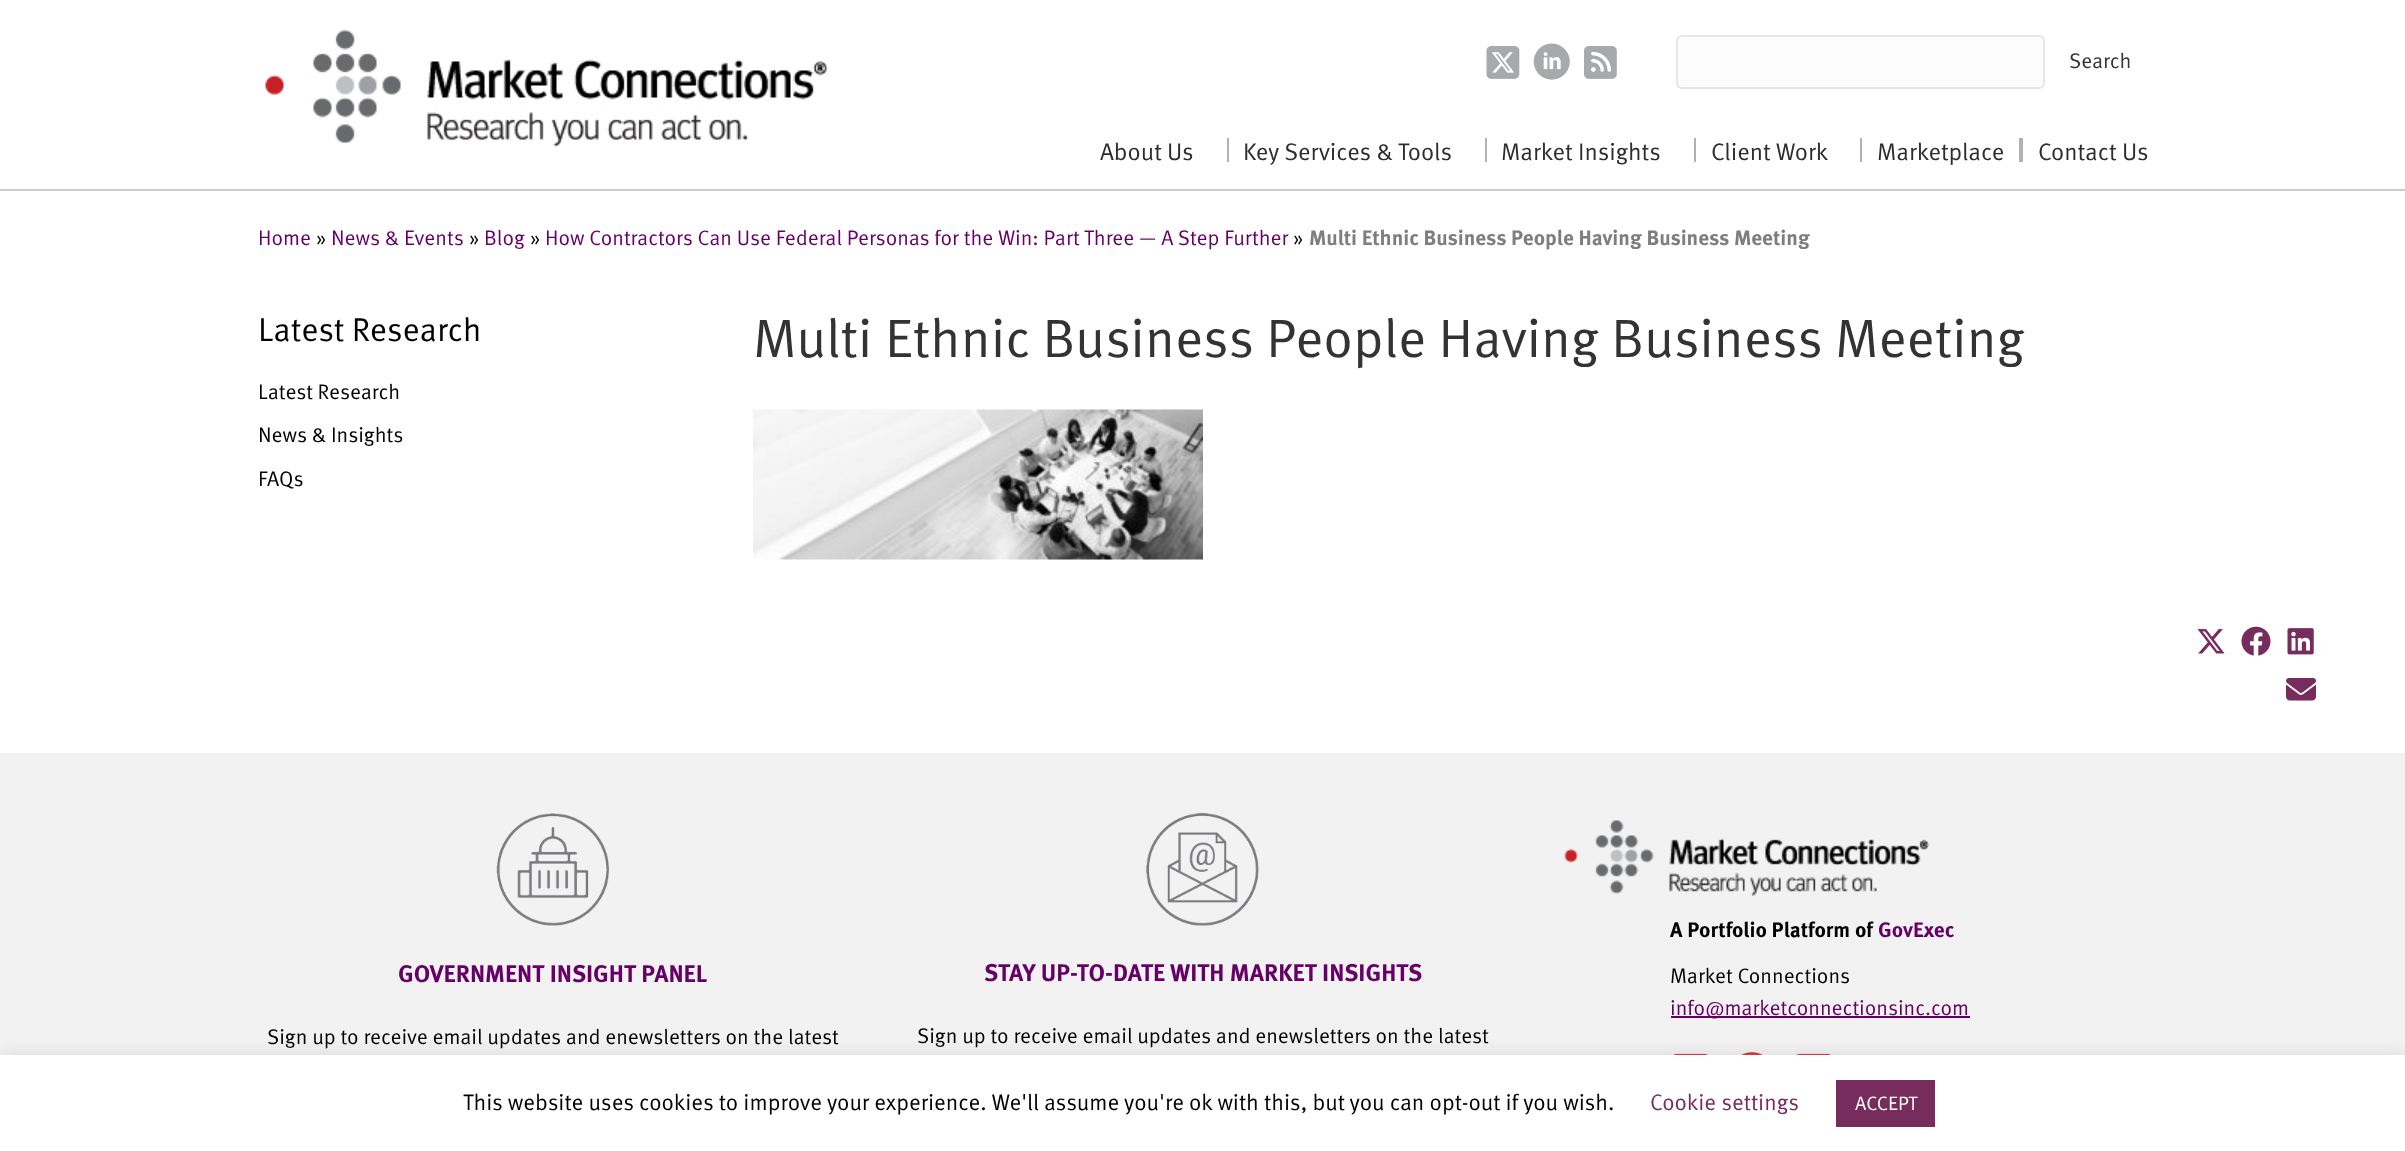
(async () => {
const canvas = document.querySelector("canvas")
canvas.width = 2405
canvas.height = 1151
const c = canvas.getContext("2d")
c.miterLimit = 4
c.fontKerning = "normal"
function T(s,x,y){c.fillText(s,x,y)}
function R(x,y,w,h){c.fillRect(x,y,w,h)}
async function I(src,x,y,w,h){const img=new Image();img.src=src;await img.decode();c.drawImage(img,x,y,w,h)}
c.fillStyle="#f2f2f2"
R(0,0,2405,1151)
c.fillStyle="#fff"
R(0,0,2405,189)
c.fillStyle="#ccc"
R(0,189,2405,2)
await I("1.png",265,29,562,119)
await I("2.png",1486,46,34,33)
await I("3.png",1533,43,37,37)
await I("4.png",1584,46,33,33)
c.fillStyle="#fcfcfc"
c.beginPath()
c.roundRect(1677,36,367,52,5)
c.fill()
c.strokeStyle="#e6e6e6"
c.lineWidth=2
c.stroke()
c.font="21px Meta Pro"
c.fillStyle="#333"
T("Search",2069,68)
c.font="24px Meta Pro"
c.fillStyle="#2d2d2d"
T("About Us",1100,160)
c.fillStyle="#b0b2b4"
R(1227,138,2,24)
c.fillStyle="#2d2d2d"
T("Key Services & Tools",1243,160)
c.fillStyle="#b0b2b4"
R(1485,138,2,24)
c.fillStyle="#2d2d2d"
T("Market Insights",1501,160)
c.fillStyle="#b0b2b4"
R(1694,138,2,24)
c.fillStyle="#2d2d2d"
T("Client Work",1711,160)
c.fillStyle="#b0b2b4"
R(1860,138,2,24)
R(2019,138,4,24)
c.fillStyle="#2d2d2d"
T("Marketplace",1877,160)
T("Contact Us",2038,160)
c.fillStyle="#fff"
R(0,191,2405,562)
c.font="21px Meta Pro"
c.fillStyle="#606"
T("Home",258,245)
c.fillStyle="#000"
T("»",316,245)
c.fillStyle="#606"
T("News & Events",331,245)
c.fillStyle="#000"
T("»",469,245)
c.fillStyle="#606"
T("Blog",484,245)
c.fillStyle="#000"
T("»",530,245)
c.fillStyle="#606"
T("How Contractors Can Use Federal Personas for the Win: Part Three — A Step Further",545,245)
c.fillStyle="#000"
T("»",1293,245)
c.font="bold 21px Meta Pro"
c.fillStyle="#7d7e80"
T("Multi Ethnic Business People Having Business Meeting",1309,245)
c.font="33px Meta Pro"
c.fillStyle="#000"
T("Latest Research",258,341)
c.font="21px Meta Pro"
T("Latest Research",258,399)
T("News & Insights",258,442)
T("FAQs",258,486)
c.font="54px Meta Pro"
c.fillStyle="#333"
T("Multi Ethnic Business People Having Business Meeting",753,357)
await I("5.png",753,409,450,151)
await I("6.png",2197,629,28,25)
await I("7.png",2241,626,30,30)
await I("8.png",2287,628,27,27)
await I("9.png",2286,678,30,23)
await I("10.png",496,813,113,113)
c.font="bold 24px Meta Pro"
c.fillStyle="#606"
T("GOVERNMENT INSIGHT PANEL",398,982)
c.font="21px Meta Pro"
c.fillStyle="#000"
T("Sign up to receive email updates and enewsletters on the latest",267,1044)
await I("11.png",1146,813,113,113)
c.font="bold 24px Meta Pro"
c.fillStyle="#606"
T("STAY UP-TO-DATE WITH MARKET INSIGHTS",984,981)
c.font="21px Meta Pro"
c.fillStyle="#000"
T("Sign up to receive email updates and enewsletters on the latest",917,1043)
await I("12.png",1564,820,366,76)
c.font="bold 21px Meta Pro"
T("A Portfolio Platform of",1670,937)
c.fillStyle="#606"
T("GovExec",1878,937)
c.font="21px Meta Pro"
c.fillStyle="#000"
T("Market Connections",1670,983)
c.fillStyle="#606"
R(1671,1016,299,2)
T("info@marketconnectionsinc.com",1670,1015)
await I("13.png",1673,1053,35,2)
await I("14.png",1741,1052,22,3)
await I("13.png",1796,1053,35,2)
c.fillStyle="#acabab4d"
c.filter="blur(7.5px)"
c.beginPath()
c.rect(0,1053,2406,98)
c.fill()
c.filter="none"
c.fillStyle="#fff"
R(0,1055,2405,96)
c.font="22.5px Meta Pro"
c.fillStyle="#000"
T("This website uses cookies to improve your experience. We'll assume you're ok with this, but you can opt-out if you wish.",463,1110)
c.fillStyle="#772c5e"
T("Cookie settings",1650,1110)
R(1836,1080,99,47)
c.font="19.5px Meta Pro"
c.fillStyle="#fff"
T("ACCEPT",1855,1110)
})()
